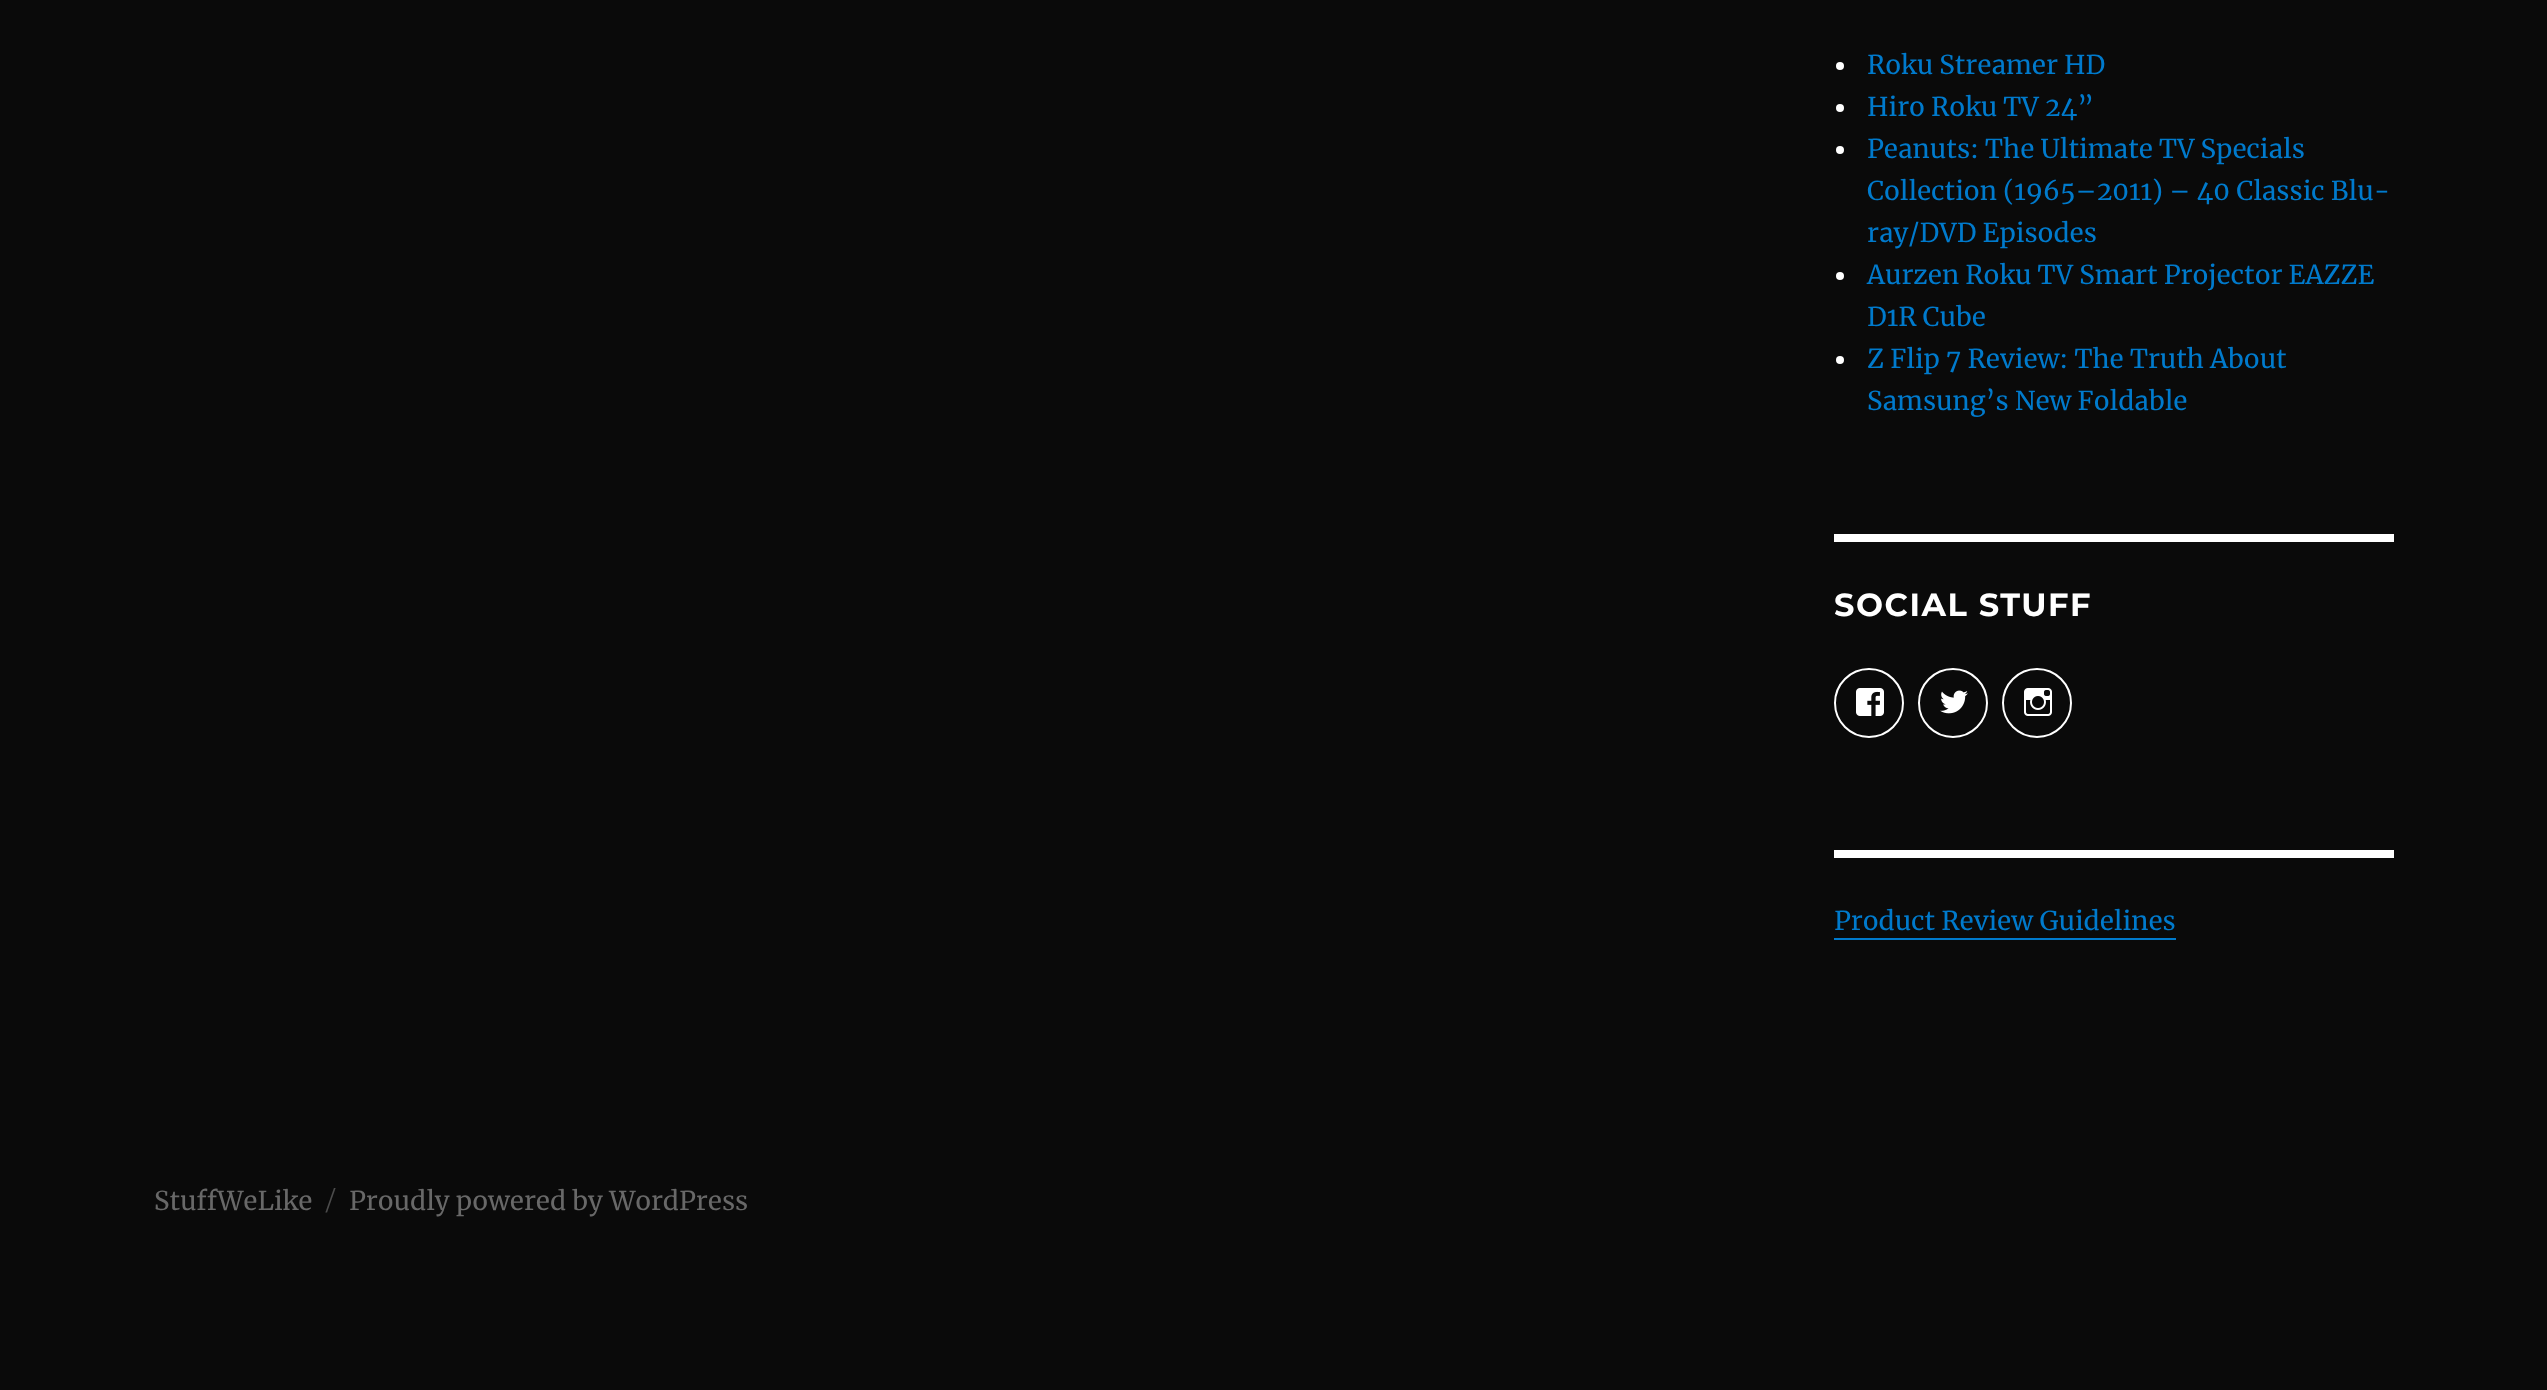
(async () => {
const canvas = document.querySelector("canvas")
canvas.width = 2547
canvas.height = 1390
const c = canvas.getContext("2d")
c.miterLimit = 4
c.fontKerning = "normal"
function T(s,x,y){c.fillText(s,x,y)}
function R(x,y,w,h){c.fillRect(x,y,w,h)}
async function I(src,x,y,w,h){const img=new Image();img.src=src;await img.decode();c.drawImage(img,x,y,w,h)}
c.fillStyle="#0a0a0a"
R(0,0,2547,1390)
c.fillStyle="#fff"
c.beginPath()
c.arc(1840,66,4,0,7)
c.fill()
c.font="26px Merriweather"
c.fillStyle="#007acc"
T("Roku Streamer HD",1867,74)
c.fillStyle="#fff"
c.beginPath()
c.arc(1840,108,4,0,7)
c.fill()
c.fillStyle="#007acc"
T("Hiro Roku TV 24”",1867,116)
c.fillStyle="#fff"
c.beginPath()
c.arc(1840,150,4,0,7)
c.fill()
c.fillStyle="#007acc"
T("Peanuts: The Ultimate TV Specials",1867,158)
T("Collection (1965–2011) – 40 Classic Blu-",1867,200)
T("ray/DVD Episodes",1867,242)
c.fillStyle="#fff"
c.beginPath()
c.arc(1840,276,4,0,7)
c.fill()
c.fillStyle="#007acc"
T("Aurzen Roku TV Smart Projector EAZZE",1867,284)
T("D1R Cube",1867,326)
c.fillStyle="#fff"
c.beginPath()
c.arc(1840,360,4,0,7)
c.fill()
c.fillStyle="#007acc"
T("Z Flip 7 Review: The Truth About",1867,368)
T("Samsung’s New Foldable",1867,410)
c.fillStyle="#fff"
R(1834,534,560,8)
c.letterSpacing="1.5px"
c.font="100 32px Montserrat"
T("SOCIAL STUFF",1834,616)
c.beginPath()
c.arc(1869,703,34,0,7)
c.strokeStyle="#fff"
c.lineWidth=2
c.stroke()
await I("1.png",1856,688,28,28)
c.beginPath()
c.arc(1953,703,34,0,7)
c.stroke()
await I("2.png",1940,690,28,24)
c.beginPath()
c.arc(2037,703,34,0,7)
c.stroke()
await I("3.png",2024,688,28,28)
R(1834,850,560,8)
c.letterSpacing="0px"
c.font="26px Merriweather"
c.fillStyle="#007acc"
T("Product Review Guidelines",1834,930)
R(1834,938,342,2)
c.fillStyle="#686868"
T("StuffWeLike",154,1210)
c.font="100 26px 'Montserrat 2'"
c.fillStyle="#4c4c4c"
T("/",326,1210)
c.font="26px Merriweather"
c.fillStyle="#686868"
T("Proudly powered by WordPress",349,1210)
})()
